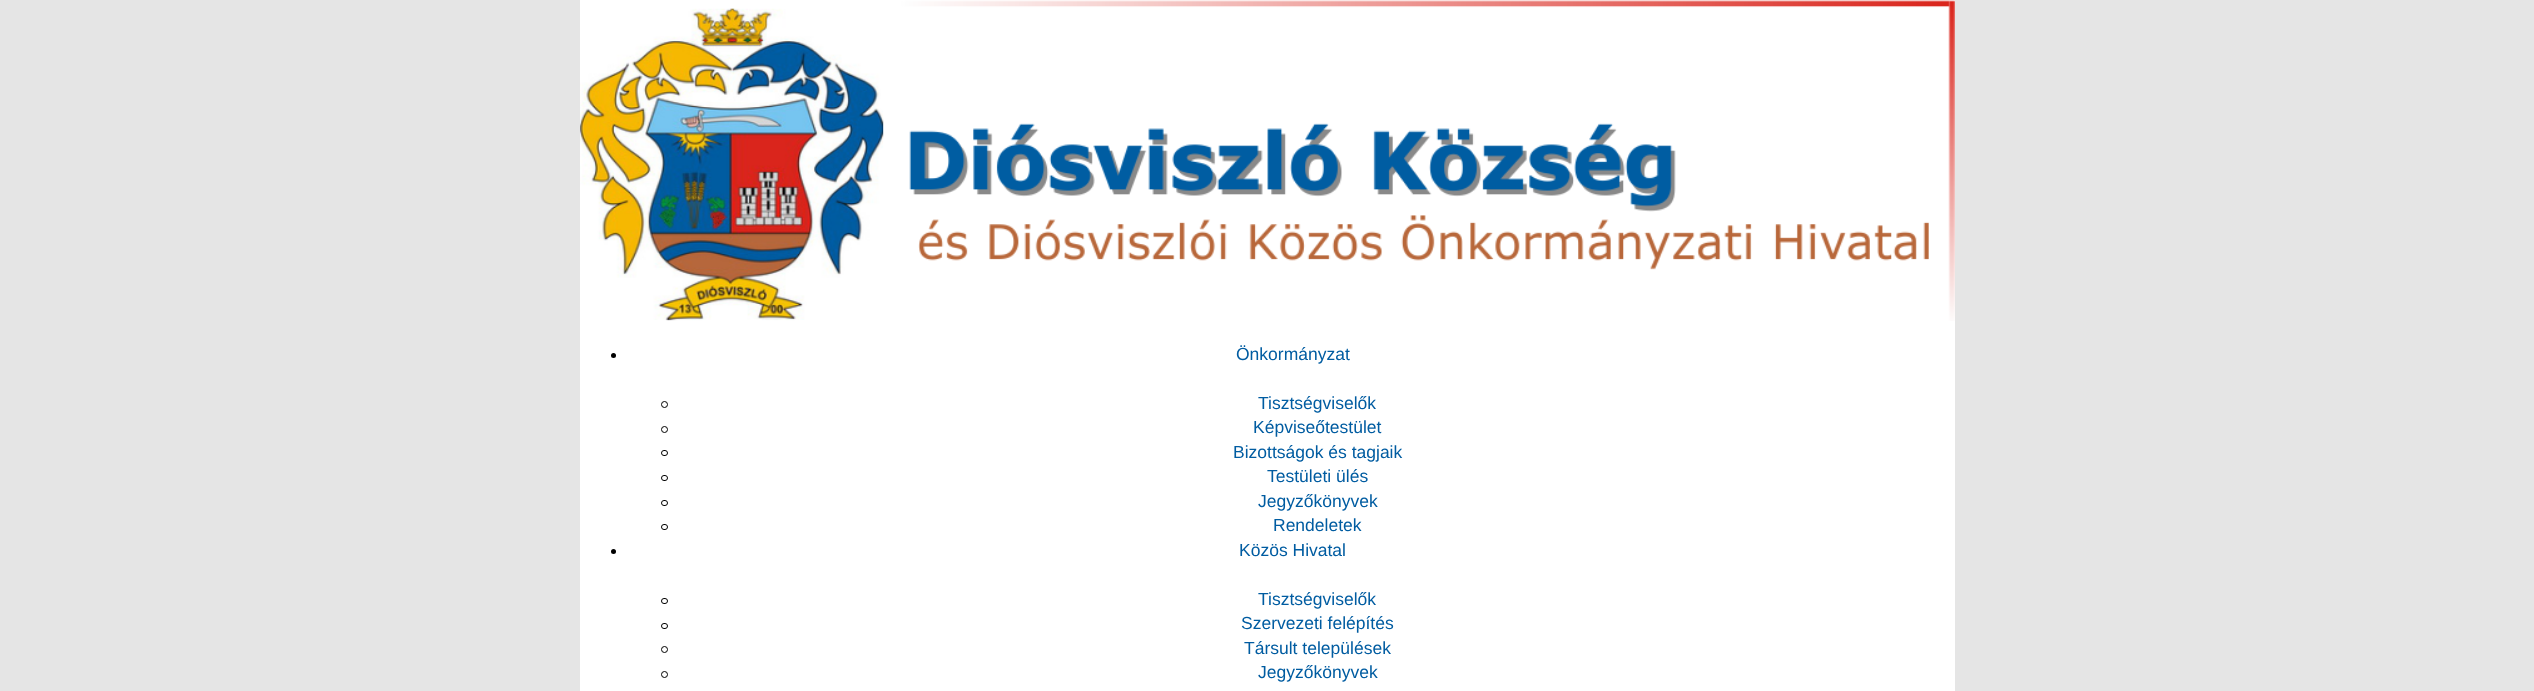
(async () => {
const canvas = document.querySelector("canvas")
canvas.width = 2534
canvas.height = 691
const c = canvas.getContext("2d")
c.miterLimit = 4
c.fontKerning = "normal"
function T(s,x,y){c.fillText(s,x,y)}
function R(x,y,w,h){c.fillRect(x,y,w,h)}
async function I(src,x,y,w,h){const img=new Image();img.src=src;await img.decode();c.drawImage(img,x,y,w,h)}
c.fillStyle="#e5e5e5"
R(0,0,2534,691)
c.fillStyle="#fff"
R(580,0,1375,691)
await I("1.png",580,0,1375,321)
c.fillStyle="#000"
c.beginPath()
c.arc(613.5,355.5,2.5,0,7)
c.fill()
c.font="17.5px Liberation Sans"
c.fillStyle="#005ca1"
T("Önkormányzat",1236,360)
c.beginPath()
c.arc(664.5,404.5,3,0,7)
c.strokeStyle="#000"
c.stroke()
T("Tisztségviselők",1258,409)
c.beginPath()
c.arc(664.5,429.5,3,0,7)
c.stroke()
T("Képviseőtestület",1253,433)
c.beginPath()
c.roundRect(661.5,450.5,6,5,2.5)
c.stroke()
T("Bizottságok és tagjaik",1233,458)
c.beginPath()
c.roundRect(661.5,475.5,6,5,2.5)
c.stroke()
T("Testületi ülés",1267,482)
c.beginPath()
c.roundRect(661.5,500.5,6,5,2.5)
c.stroke()
T("Jegyzőkönyvek",1258,507)
c.beginPath()
c.roundRect(661.5,524.5,6,5,2.5)
c.stroke()
T("Rendeletek",1273,531)
c.fillStyle="#000"
c.beginPath()
c.arc(613.5,551.5,2.5,0,7)
c.fill()
c.fillStyle="#005ca1"
T("Közös Hivatal",1239,556)
c.beginPath()
c.roundRect(661.5,598.5,6,5,2.5)
c.stroke()
T("Tisztségviselők",1258,605)
c.beginPath()
c.roundRect(661.5,623.5,6,5,2.5)
c.stroke()
T("Szervezeti felépítés",1241,629)
c.beginPath()
c.arc(664.5,649.5,3,0,7)
c.stroke()
T("Társult települések",1244,654)
c.beginPath()
c.arc(664.5,674.5,3,0,7)
c.stroke()
T("Jegyzőkönyvek",1258,678)
})()
